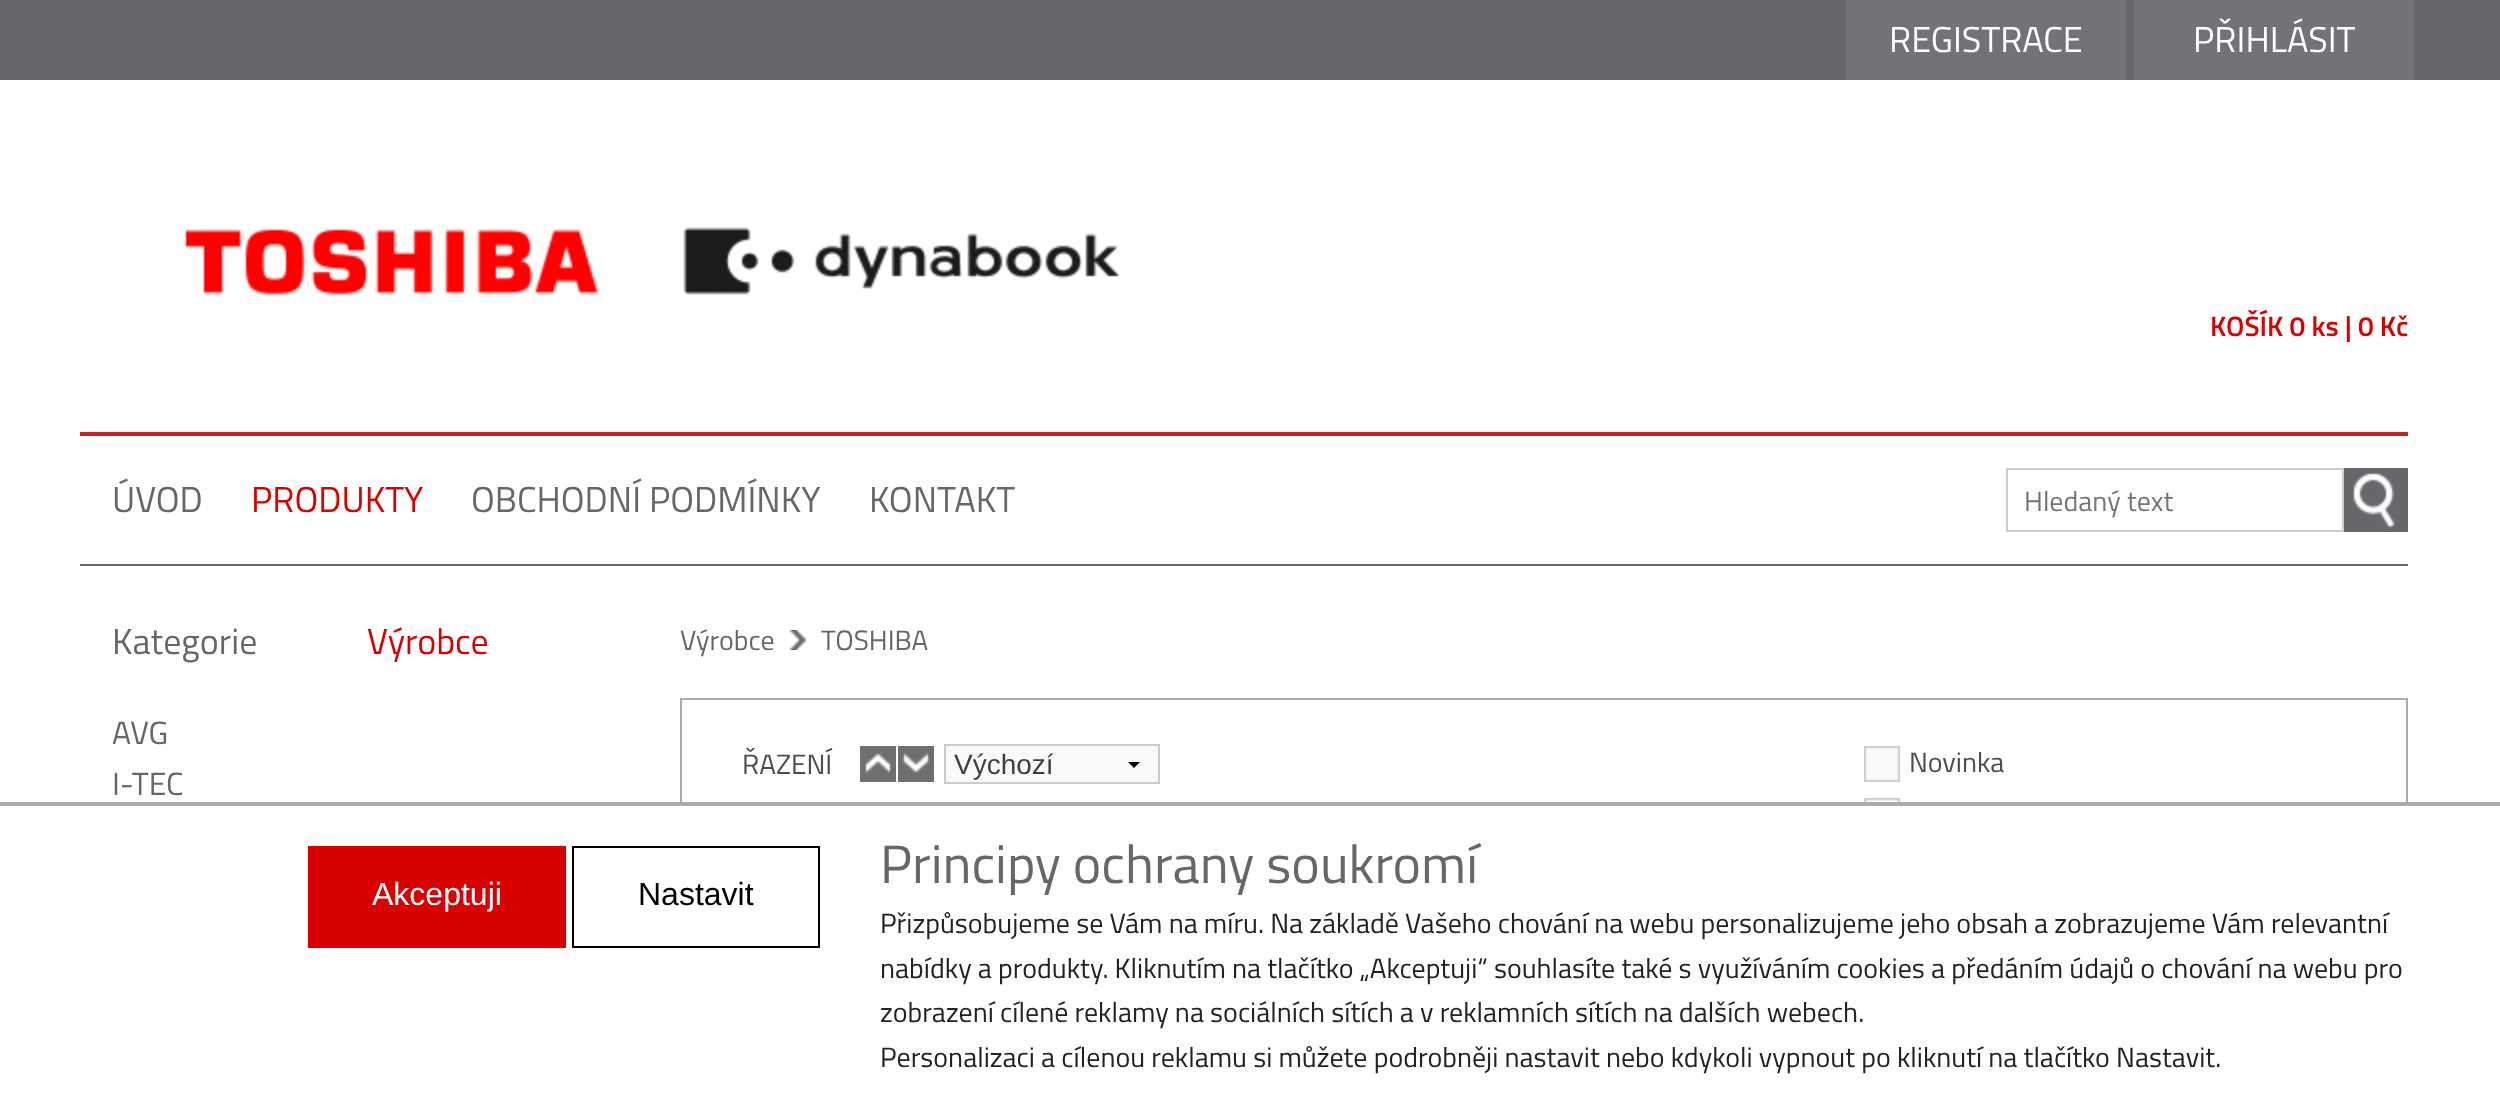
(async () => {
const canvas = document.querySelector("canvas")
canvas.width = 2500
canvas.height = 1120
const c = canvas.getContext("2d")
c.miterLimit = 4
c.fontKerning = "normal"
function T(s,x,y){c.fillText(s,x,y)}
function R(x,y,w,h){c.fillRect(x,y,w,h)}
async function I(src,x,y,w,h){const img=new Image();img.src=src;await img.decode();c.drawImage(img,x,y,w,h)}
let path
c.fillStyle="#fff"
R(0,0,2500,1120)
c.fillStyle="#66676b"
R(0,0,2500,80)
c.fillStyle="#737377"
R(1846,0,280,80)
c.font="36px Titillium Web"
c.fillStyle="#fff"
T("REGISTRACE",1889,52)
c.fillStyle="#737377"
R(2134,0,280,80)
c.fillStyle="#fff"
T("PŘIHLÁSIT",2193,52)
c.fillStyle="#c6241e"
R(80,432,2328,4)
await I("1.png",185,227,935,68)
c.font="600 28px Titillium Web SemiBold"
c.fillStyle="#db0000"
T("KOŠÍK 0 ks | 0 Kč",2210,336)
c.fillStyle="#67676b"
R(80,564,2328,2)
c.font="36px Titillium Web"
c.fillStyle="#66676b"
T("ÚVOD",112,512)
c.fillStyle="#db0000"
T("PRODUKTY",251,512)
c.fillStyle="#66676b"
T("OBCHODNÍ PODMÍNKY",471,512)
T("KONTAKT",869,512)
c.strokeStyle="#ccc"
c.lineWidth=2
c.strokeRect(2007,469,336,62)
c.font="28px Titillium Web"
c.fillStyle="#757575"
T("Hledaný text",2024,511)
await I("2.png",2344,468,64,64)
c.font="36px Titillium Web"
c.fillStyle="#66676b"
T("Kategorie",112,654)
c.fillStyle="#db0000"
T("Výrobce",367,654)
c.font="32px Titillium Web"
c.fillStyle="#66676b"
T("AVG",112,744)
T("I-TEC",112,795)
c.font="28px Titillium Web"
T("Výrobce",680,650)
await I("3.png",790,630,16,20)
T("TOSHIBA",821,650)
c.strokeStyle="#aaa9ac"
c.strokeRect(681,699,1726,296)
c.fillStyle="#4d4d4d"
T("ŘAZENÍ",742,774)
await I("4.png",860,746,36,36)
await I("5.png",898,746,36,36)
c.fillStyle="#fafafa"
R(946,746,212,36)
c.fillStyle="#000"
path = new Path2D("M1140 762l-6 6l-6-6z")
c.fill(path)
c.strokeStyle="#ccc"
c.strokeRect(945,745,214,38)
c.font="28px Liberation Sans"
c.fillStyle="#3f3f3f"
T("Výchozí",954,774)
await I("6.png",1864,746,36,36)
c.font="28px Titillium Web"
c.fillStyle="#4d4d4d"
T("Novinka",1909,772)
await I("7.png",1864,798,36,4)
c.fillStyle="#fff"
R(680,806,1728,190)
c.fillStyle="#aaa9ac"
R(0,802,2500,4)
c.fillStyle="#db0000"
R(308,846,258,102)
c.font="32px Liberation Sans"
c.fillStyle="#fff"
T("Akceptuji",372,905)
c.strokeStyle="#000"
c.strokeRect(573,847,246,100)
c.fillStyle="#000"
T("Nastavit",638,905)
c.font="54px Titillium Web"
c.fillStyle="#66676b"
T("Principy ochrany soukromí",880,883)
c.font="28px Titillium Web"
c.fillStyle="#222"
T("Přizpůsobujeme se Vám na míru. Na základě Vašeho chování na webu personalizujeme jeho obsah a zobrazujeme Vám relevantní",880,933)
T("nabídky a produkty. Kliknutím na tlačítko „Akceptuji“ souhlasíte také s využíváním cookies a předáním údajů o chování na webu pro",880,978)
T("zobrazení cílené reklamy na sociálních sítích a v reklamních sítích na dalších webech.",880,1022)
T("Personalizaci a cílenou reklamu si můžete podrobněji nastavit nebo kdykoli vypnout po kliknutí na tlačítko Nastavit.",880,1067)
})()
